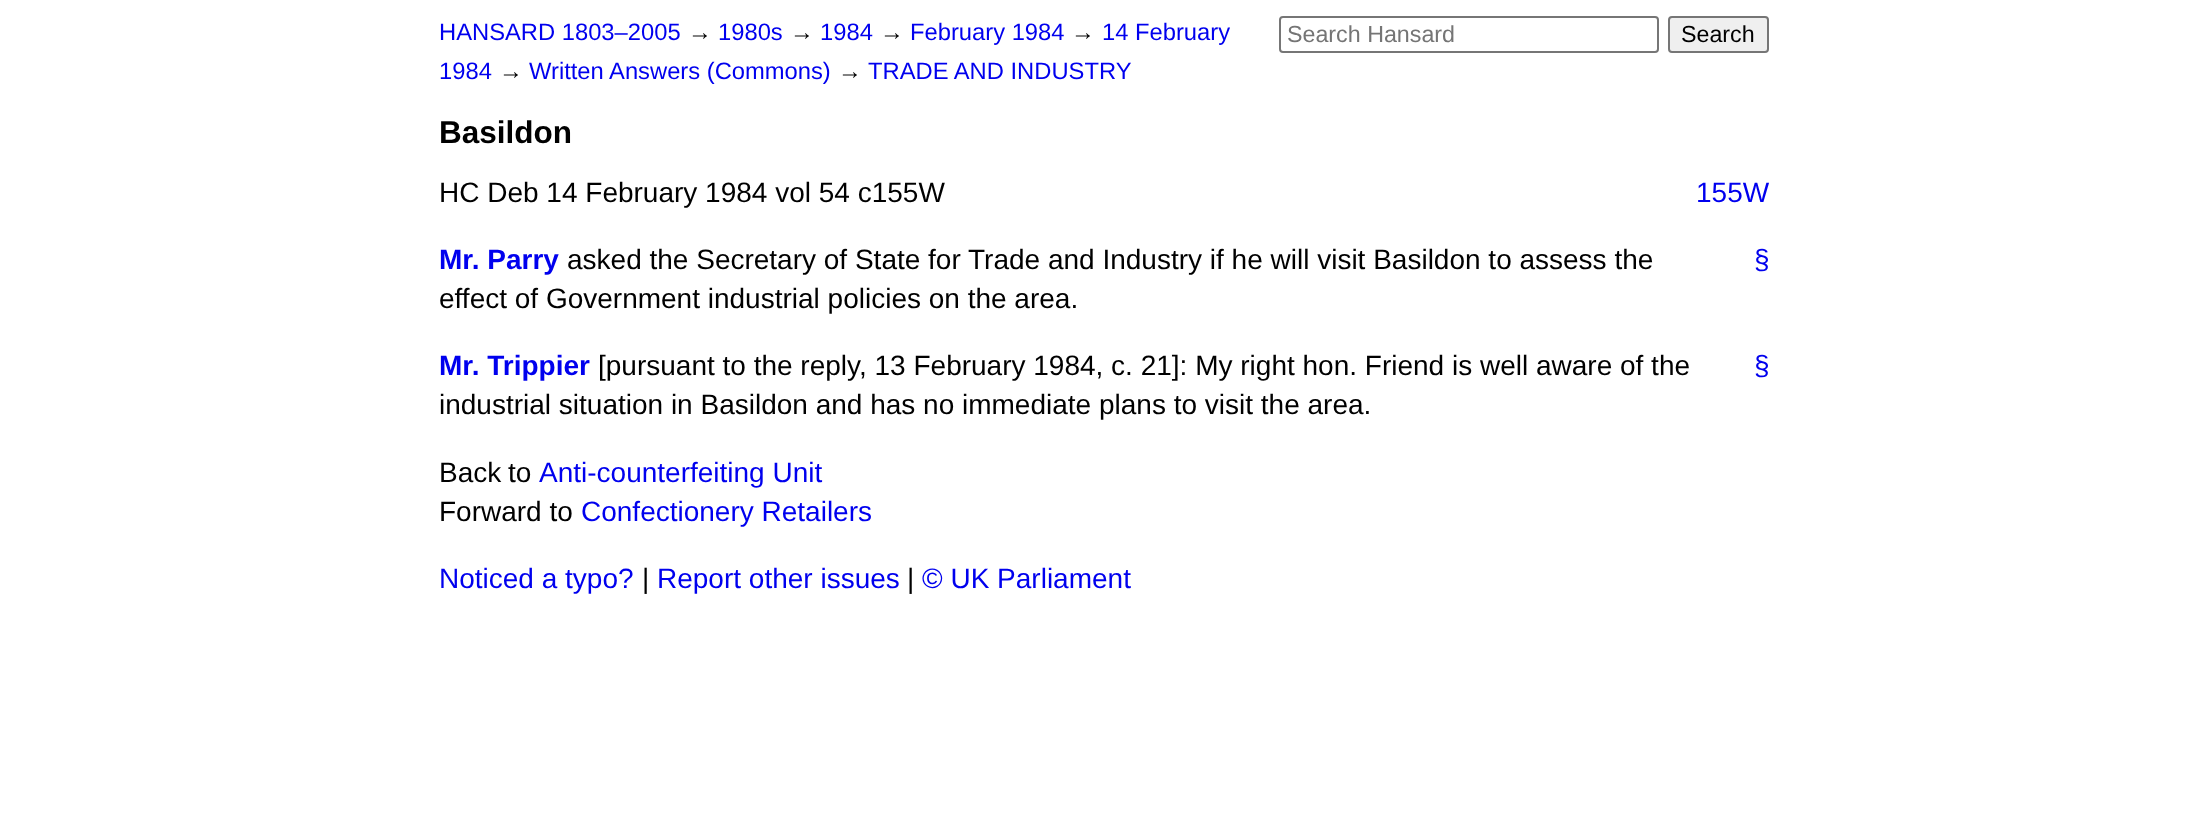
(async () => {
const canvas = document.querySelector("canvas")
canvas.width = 2208
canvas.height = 839
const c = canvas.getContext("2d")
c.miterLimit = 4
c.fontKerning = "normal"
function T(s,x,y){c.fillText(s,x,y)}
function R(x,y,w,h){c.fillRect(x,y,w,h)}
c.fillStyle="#fff"
R(0,0,2208,839)
c.font="23.75px Liberation Sans"
c.fillStyle="#00e"
T("HANSARD 1803–2005",439,40)
c.fillStyle="#000"
T("→",688,40)
c.fillStyle="#00e"
T("1980s",718,40)
c.fillStyle="#000"
T("→",790,40)
c.fillStyle="#00e"
T("1984",820,40)
c.fillStyle="#000"
T("→",880,40)
c.fillStyle="#00e"
T("February 1984",910,40)
c.fillStyle="#000"
T("→",1071,40)
c.fillStyle="#00e"
T("14 February",1102,40)
T("1984",439,79)
c.fillStyle="#000"
T("→",499,79)
c.fillStyle="#00e"
T("Written Answers (Commons)",529,79)
c.fillStyle="#000"
T("→",838,79)
c.fillStyle="#00e"
T("TRADE AND INDUSTRY",868,79)
c.beginPath()
c.roundRect(1280,17,378,35,3)
c.strokeStyle="#767676"
c.lineWidth=2
c.stroke()
c.font="23.25px Liberation Sans"
c.fillStyle="#757575"
T("Search Hansard",1287,42)
c.fillStyle="#efefef"
c.beginPath()
c.roundRect(1669,17,99,35,3)
c.fill()
c.stroke()
c.fillStyle="#000"
T("Search",1681,42)
c.font="bold 31.5px Liberation Sans"
T("Basildon",439,143)
c.font="28px Liberation Sans"
T("HC Deb 14 February 1984 vol 54 c155W",439,202)
c.fillStyle="#00e"
T("155W",1696,202)
c.font="bold 28px Liberation Sans"
T("Mr. Parry",439,269)
c.font="28px Liberation Sans"
c.fillStyle="#000"
T("asked the Secretary of State for Trade and Industry if he will visit Basildon to assess the",567,269)
c.fillStyle="#00e"
T("§",1754,269)
c.fillStyle="#000"
T("effect of Government industrial policies on the area.",439,308)
c.font="bold 28px Liberation Sans"
c.fillStyle="#00e"
T("Mr. Trippier",439,375)
c.font="28px Liberation Sans"
c.fillStyle="#000"
T("[pursuant to the reply, 13 February 1984, c. 21]: My right hon. Friend is well aware of the",598,375)
c.fillStyle="#00e"
T("§",1754,375)
c.fillStyle="#000"
T("industrial situation in Basildon and has no immediate plans to visit the area.",439,414)
c.wordSpacing="-1px"
T("Back to",439,482)
c.wordSpacing="0px"
c.fillStyle="#00e"
T("Anti-counterfeiting Unit",539,482)
c.fillStyle="#000"
T("Forward to",439,521)
c.fillStyle="#00e"
T("Confectionery Retailers",581,521)
T("Noticed a typo?",439,588)
c.fillStyle="#000"
T("|",642,588)
c.fillStyle="#00e"
T("Report other issues",657,588)
c.fillStyle="#000"
T("|",907,588)
c.fillStyle="#00e"
T("© UK Parliament",922,588)
})()
